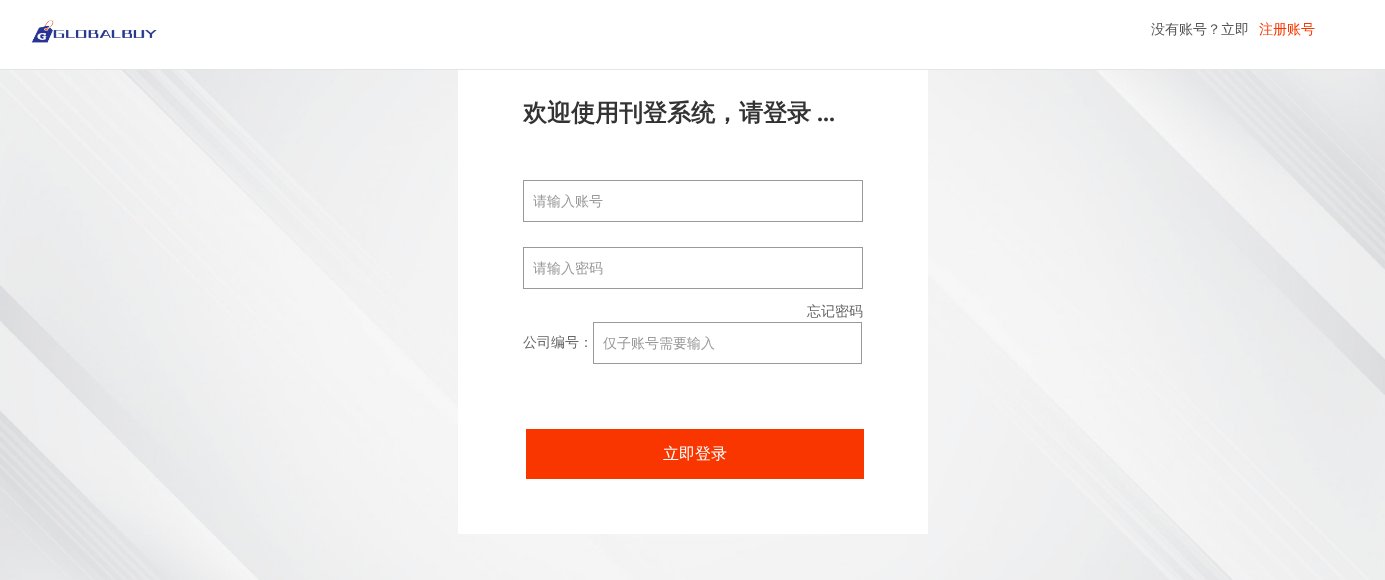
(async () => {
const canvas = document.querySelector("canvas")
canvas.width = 1385
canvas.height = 580
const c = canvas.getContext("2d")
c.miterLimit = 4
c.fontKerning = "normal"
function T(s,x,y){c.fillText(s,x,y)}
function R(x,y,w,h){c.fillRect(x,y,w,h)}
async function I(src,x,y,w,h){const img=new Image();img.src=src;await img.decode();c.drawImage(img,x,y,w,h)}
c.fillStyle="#f4f4f4"
R(0,0,1385,580)
c.fillStyle="#fff"
R(0,0,1385,69)
c.fillStyle="#e4e4e4"
R(0,69,1385,1)
await I("1.png",31,20,126,23)
c.font="500 14px WenQuanYi Zen Hei"
c.fillStyle="#555"
T("没有账号？立即",1151,34)
c.fillStyle="#f93600"
T("注册账号",1259,34)
await I("2.png",0,70,1385,510)
c.fillStyle="#fff"
R(458,70,470,464)
c.font="bold 24px WenQuanYi Zen Hei"
c.fillStyle="#333"
T("欢迎使用刊登系统，请登录",523,121)
c.font="bold 24px Liberation Serif"
T("...",817,121)
c.strokeStyle="#999"
c.strokeRect(523.5,180.5,339,41)
c.font="500 14px WenQuanYi Zen Hei"
c.fillStyle="#999"
T("请输入账号",533,206)
c.strokeRect(523.5,247.5,339,41)
T("请输入密码",533,273)
c.fillStyle="#666"
T("忘记密码",807,316)
T("公司编号：",523,347)
c.strokeRect(593.5,322.5,268,41)
c.fillStyle="#999"
T("仅子账号需要输入",603,348)
c.fillStyle="#f93600"
R(526,429,338,50)
c.font="500 16px WenQuanYi Zen Hei"
c.fillStyle="#fff"
T("立即登录",663,459)
})()
